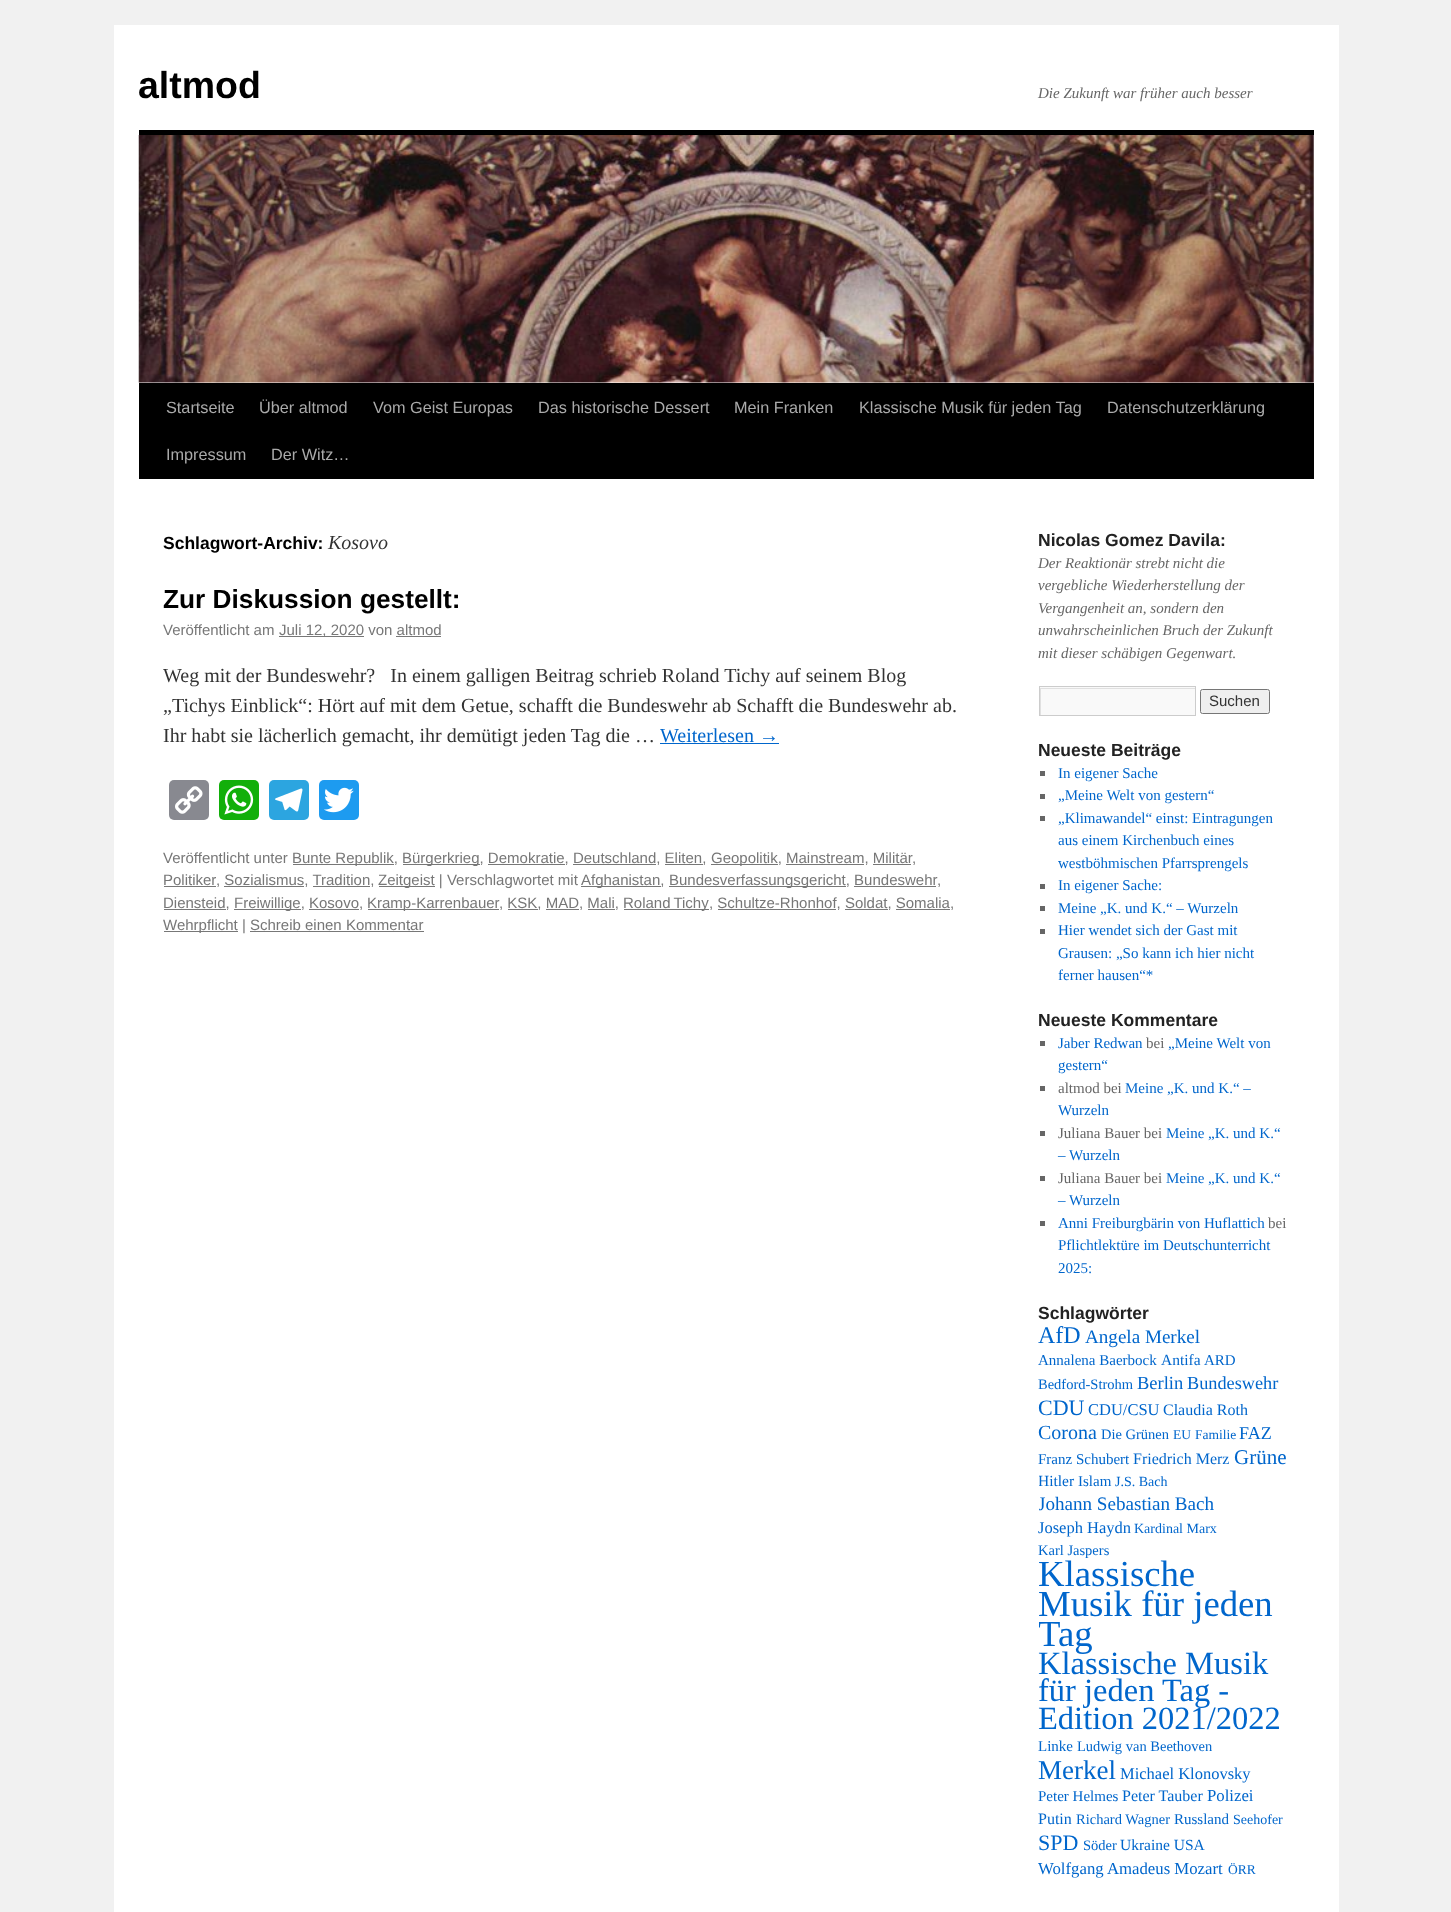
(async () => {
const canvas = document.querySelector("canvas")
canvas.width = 1451
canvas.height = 1912
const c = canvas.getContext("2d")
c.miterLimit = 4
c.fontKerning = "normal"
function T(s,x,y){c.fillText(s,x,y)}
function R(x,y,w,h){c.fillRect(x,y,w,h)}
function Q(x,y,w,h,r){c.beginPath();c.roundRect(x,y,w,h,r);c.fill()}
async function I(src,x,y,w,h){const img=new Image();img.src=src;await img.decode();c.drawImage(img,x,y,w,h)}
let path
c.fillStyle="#f1f1f1"
R(0,0,1451,1912)
c.fillStyle="#fff"
R(114,25,1225,1887)
c.font="bold 37.5px Liberation Sans"
c.fillStyle="#000"
T("altmod",138,98)
c.font="italic 15px Liberation Serif"
c.fillStyle="#666"
T("Die Zukunft war früher auch besser",1038,98)
c.fillStyle="#000"
R(139,130,1175,5)
R(139,383,1175,96)
await I("1.png",138,135,1176,248)
c.font="16.25px Liberation Sans"
c.fillStyle="#aaa"
T("Startseite",166,413)
T("Über altmod",259,413)
T("Vom Geist Europas",373,413)
T("Das historische Dessert",538,413)
T("Mein Franken",734,413)
T("Klassische Musik für jeden Tag",859,413)
T("Datenschutzerklärung",1107,413)
T("Impressum",166,460)
T("Der Witz…",271,460)
c.font="bold 17.5px Liberation Sans"
c.fillStyle="#000"
T("Schlagwort-Archiv:",163,549)
c.font="italic 20px Liberation Serif"
c.fillStyle="#333"
T("Kosovo",328,549)
c.font="bold 26.25px Liberation Sans"
c.fillStyle="#000"
T("Zur Diskussion gestellt:",163,608)
c.font="15px Liberation Sans"
c.fillStyle="#777"
T("Veröffentlicht am",163,635)
R(279,636,85,1)
T("Juli 12, 2020 von altmod",279,635)
R(396,636,45,1)
c.font="20px Liberation Serif"
c.fillStyle="#333"
T("Weg mit der Bundeswehr?   In einem galligen Beitrag schrieb Roland Tichy auf seinem Blog",163,682)
T("„Tichys Einblick“: Hört auf mit dem Getue, schafft die Bundeswehr ab Schafft die Bundeswehr ab.",163,712)
T("Ihr habt sie lächerlich gemacht, ihr demütigt jeden Tag die …",163,742)
c.fillStyle="#06c"
T("Weiterlesen →",660,742)
R(660,743,119,1)
c.fillStyle="#888990"
Q(169,780,40,40,5)
await I("2.png",175,786,28,28)
c.fillStyle="#12af0a"
Q(219,780,40,40,5)
await I("3.png",224,785,30,30)
c.fillStyle="#2ca5e0"
Q(269,780,40,40,5)
await I("4.png",275,788,28,24)
c.fillStyle="#1d9bf0"
Q(319,780,40,40,5)
await I("5.png",324,787,30,26)
c.font="15px Liberation Sans"
c.fillStyle="#777"
T("Veröffentlicht unter",163,863)
R(293,864,101,1)
T("Bunte Republik,",292,863)
R(403,864,77,1)
T("Bürgerkrieg, Demokratie, Deutschland, Eliten,",402,863)
R(488,864,77,1)
R(573,864,83,1)
R(665,864,38,1)
R(711,864,67,1)
T("Geopolitik, Mainstream, Militär",711,863)
R(786,864,78,1)
T(",",912,863)
R(873,864,38,1)
T("Politiker",163,885)
R(164,886,52,1)
T(", Sozialismus, Tradition,",216,885)
R(224,886,80,1)
R(313,886,57,1)
R(379,886,56,1)
T("Zeitgeist | Verschlagwortet mit",378,885)
R(581,886,80,1)
T("Afghanistan,",581,885)
R(669,886,177,1)
T("Bundesverfassungsgericht, Bundeswehr",669,885)
T(",",937,885)
R(854,886,82,1)
R(164,909,62,1)
T("Diensteid,",163,908)
R(234,909,67,1)
T("Freiwillige, Kosovo,",234,908)
R(309,909,50,1)
R(368,909,131,1)
T("Kramp-Karrenbauer",367,908)
T(", KSK, MAD, Mali,",499,908)
R(508,909,30,1)
R(546,909,33,1)
R(588,909,27,1)
R(624,909,85,1)
c.wordSpacing="-1px"
T("Roland Tichy",623,908)
c.wordSpacing="0px"
T(", Schultze-Rhonhof, Soldat, Somalia,",709,908)
R(718,909,118,1)
R(845,909,43,1)
R(896,909,54,1)
R(164,931,74,1)
T("Wehrpflicht | Schreib einen Kommentar",163,930)
R(250,931,174,1)
c.font="bold 17.5px Liberation Sans"
c.fillStyle="#222"
T("Nicolas Gomez Davila:",1038,546)
c.font="italic 15px Liberation Serif"
c.fillStyle="#666"
T("Der Reaktionär strebt nicht die",1038,568)
T("vergebliche Wiederherstellung der",1038,590)
T("Vergangenheit an, sondern den",1038,613)
T("unwahrscheinlichen Bruch der Zukunft",1038,635)
T("mit dieser schäbigen Gegenwart.",1038,658)
c.fillStyle="#f9f9f9"
R(1040,687,155,28)
c.save()
c.beginPath()
c.rect(1040,688,155,27)
c.clip()
c.fillStyle="#e0e0e0"
path = new Path2D("M916 564h403v275h-403zm125 125h155v27h-155z")
c.fill(path,"evenodd")
c.restore()
c.strokeStyle="#ccc"
c.strokeRect(1039.5,686.5,156,29)
c.fillStyle="#efefef"
c.beginPath()
c.roundRect(1200.5,689.5,69,24,2)
c.fill()
c.strokeStyle="#767676"
c.stroke()
c.font="15px Liberation Sans"
c.fillStyle="#333"
T("Suchen",1209,706)
c.font="bold 17.5px Liberation Sans"
c.fillStyle="#222"
T("Neueste Beiträge",1038,756)
c.fillStyle="#666"
R(1040,771,5,5)
c.font="15px Liberation Serif"
c.fillStyle="#06c"
T("In eigener Sache",1058,778)
c.fillStyle="#666"
R(1040,794,5,5)
c.fillStyle="#06c"
T("„Meine Welt von gestern“",1058,800)
c.fillStyle="#666"
R(1040,816,5,5)
c.fillStyle="#06c"
T("„Klimawandel“ einst: Eintragungen",1058,823)
T("aus einem Kirchenbuch eines",1058,845)
T("westböhmischen Pfarrsprengels",1058,868)
c.fillStyle="#666"
R(1040,884,5,5)
c.fillStyle="#06c"
T("In eigener Sache:",1058,890)
c.fillStyle="#666"
R(1040,906,5,5)
c.fillStyle="#06c"
T("Meine „K. und K.“ – Wurzeln",1058,913)
c.fillStyle="#666"
R(1040,929,5,5)
c.fillStyle="#06c"
T("Hier wendet sich der Gast mit",1058,935)
T("Grausen: „So kann ich hier nicht",1058,958)
T("ferner hausen“*",1058,980)
c.font="bold 17.5px Liberation Sans"
c.fillStyle="#222"
T("Neueste Kommentare",1038,1026)
c.fillStyle="#666"
R(1040,1041,5,5)
c.font="15px Liberation Serif"
c.fillStyle="#06c"
T("Jaber Redwan",1058,1048)
c.fillStyle="#666"
T("bei",1146,1048)
c.fillStyle="#06c"
T("„Meine Welt von",1168,1048)
T("gestern“",1058,1070)
c.fillStyle="#666"
R(1040,1086,5,5)
T("altmod bei",1058,1093)
c.fillStyle="#06c"
T("Meine „K. und K.“ –",1125,1093)
T("Wurzeln",1058,1115)
c.fillStyle="#666"
R(1040,1131,5,5)
T("Juliana Bauer bei",1058,1138)
c.fillStyle="#06c"
T("Meine „K. und K.“",1166,1138)
T("– Wurzeln",1058,1160)
c.fillStyle="#666"
R(1040,1176,5,5)
T("Juliana Bauer bei",1058,1183)
c.fillStyle="#06c"
T("Meine „K. und K.“",1166,1183)
T("– Wurzeln",1058,1205)
c.fillStyle="#666"
R(1040,1221,5,5)
c.fillStyle="#06c"
T("Anni Freiburgbärin von Huflattich",1058,1228)
c.fillStyle="#666"
T("bei",1268,1228)
c.fillStyle="#06c"
T("Pflichtlektüre im Deutschunterricht",1058,1250)
T("2025:",1058,1273)
c.font="bold 17.5px Liberation Sans"
c.fillStyle="#222"
T("Schlagwörter",1038,1319)
c.font="24px Liberation Serif"
c.fillStyle="#06c"
T("AfD",1038,1343)
c.font="19.1px Liberation Serif"
T("Angela Merkel",1085,1343)
c.font="15px Liberation Serif"
T("Annalena Baerbock",1038,1365)
c.font="15.5px Liberation Serif"
T("Antifa",1161,1365)
c.font="15px Liberation Serif"
T("ARD",1204,1365)
c.font="14.5px Liberation Serif"
T("Bedford-Strohm",1038,1389)
c.font="18.5px Liberation Serif"
T("Berlin",1137,1389)
c.font="18.25px Liberation Serif"
T("Bundeswehr",1187,1389)
c.font="22px Liberation Serif"
T("CDU",1038,1415)
c.font="16.5px Liberation Serif"
T("CDU/CSU",1088,1415)
c.font="16px Liberation Serif"
T("Claudia Roth",1163,1415)
c.font="20px Liberation Serif"
T("Corona",1038,1439)
c.font="14.5px Liberation Serif"
T("Die Grünen",1101,1439)
c.font="13.5px Liberation Serif"
T("EU",1173,1439)
T("Familie",1195,1439)
c.font="18px Liberation Serif"
T("FAZ",1239,1439)
c.font="15px Liberation Serif"
T("Franz Schubert",1038,1464)
c.font="16px Liberation Serif"
T("Friedrich Merz",1133,1464)
c.font="21px Liberation Serif"
T("Grüne",1234,1464)
c.save()
c.beginPath()
c.rect(1039,529,275,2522)
c.clip()
c.font="15.5px Liberation Serif"
T("Hitler",1038,1486)
c.restore()
c.font="15px Liberation Serif"
T("Islam",1078,1486)
c.font="14px Liberation Serif"
T("J.S. Bach",1115,1486)
c.save()
c.beginPath()
c.rect(1039,529,275,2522)
c.clip()
c.font="19.1px Liberation Serif"
T("Johann Sebastian Bach",1038,1510)
c.restore()
c.font="16.5px Liberation Serif"
T("Joseph Haydn",1038,1533)
c.font="14px Liberation Serif"
T("Kardinal Marx",1134,1533)
c.font="14.5px Liberation Serif"
T("Karl Jaspers",1038,1555)
c.font="36.75px Liberation Serif"
T("Klassische",1038,1586)
T("Musik für jeden",1038,1616)
c.save()
c.beginPath()
c.rect(1039,529,275,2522)
c.clip()
T("Tag",1038,1646)
c.restore()
c.font="32.5px Liberation Serif"
T("Klassische Musik",1038,1674)
T("für jeden Tag -",1038,1701)
T("Edition 2021/2022",1038,1729)
c.font="15px Liberation Serif"
T("Linke",1038,1751)
c.font="14.5px Liberation Serif"
T("Ludwig van Beethoven",1077,1751)
c.font="27px Liberation Serif"
T("Merkel",1038,1779)
c.font="16.5px Liberation Serif"
T("Michael Klonovsky",1120,1779)
c.font="15px Liberation Serif"
T("Peter Helmes",1038,1801)
c.font="16px Liberation Serif"
T("Peter Tauber",1122,1801)
c.font="16.75px Liberation Serif"
T("Polizei",1207,1801)
c.font="16px Liberation Serif"
T("Putin",1038,1824)
c.font="14.5px Liberation Serif"
T("Richard Wagner",1076,1824)
c.font="15px Liberation Serif"
T("Russland",1174,1824)
c.font="14px Liberation Serif"
T("Seehofer",1233,1824)
c.font="22px Liberation Serif"
T("SPD",1038,1850)
c.font="14.5px Liberation Serif"
T("Söder",1083,1850)
c.font="15.5px Liberation Serif"
T("Ukraine USA",1120,1850)
c.font="16.75px Liberation Serif"
T("Wolfgang Amadeus Mozart",1038,1874)
c.font="13.5px Liberation Serif"
T("ÖRR",1228,1874)
})()
